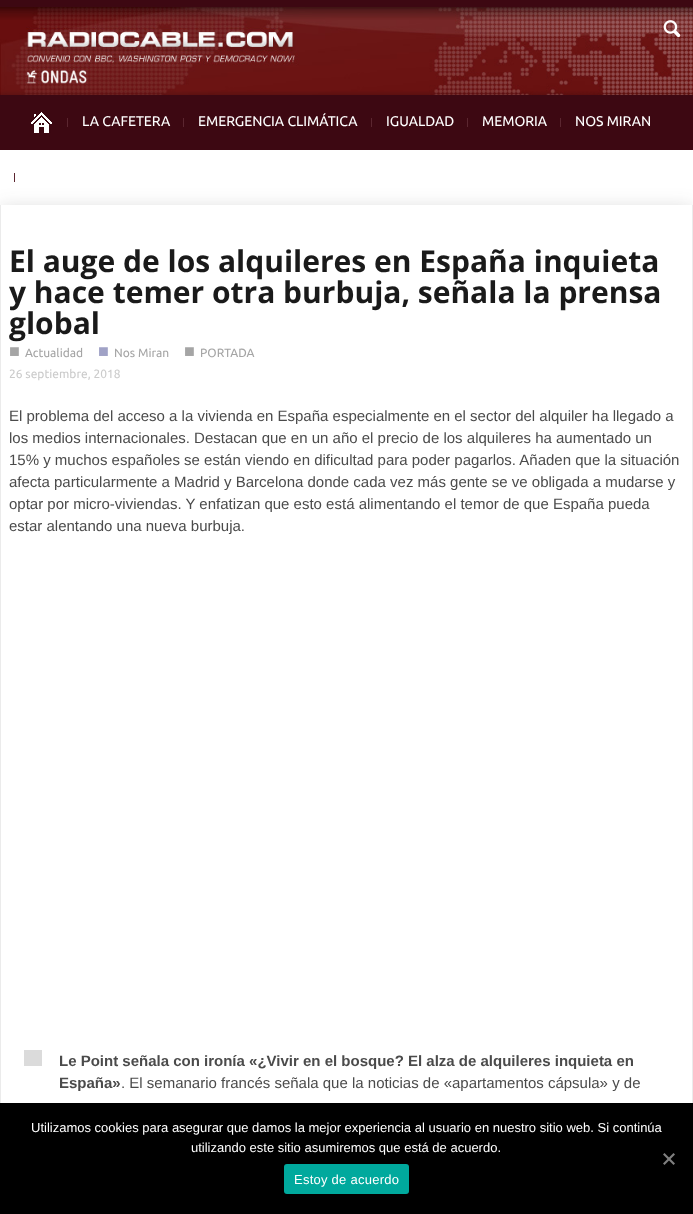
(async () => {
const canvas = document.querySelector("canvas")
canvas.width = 693
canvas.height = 1214
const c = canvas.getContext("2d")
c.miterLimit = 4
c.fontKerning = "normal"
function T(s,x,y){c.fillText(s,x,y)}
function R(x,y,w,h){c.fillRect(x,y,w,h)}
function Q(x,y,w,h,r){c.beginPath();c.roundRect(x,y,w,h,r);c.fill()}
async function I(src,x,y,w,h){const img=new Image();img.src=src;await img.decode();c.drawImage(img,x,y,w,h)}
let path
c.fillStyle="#3d0812"
R(0,0,693,1214)
await I("1.png",0,7,693,88)
await I("2.png",663,20,18,18)
await I("3.png",31,112,21,21)
c.fillStyle="#5b2630"
R(67,118,1,9)
c.font="14px Ubuntu"
c.fillStyle="#fff"
T("LA CAFETERA",82,126)
c.fillStyle="#5b2630"
R(183,118,1,9)
c.fillStyle="#fff"
T("EMERGENCIA CLIMÁTICA",198,126)
c.fillStyle="#5b2630"
R(371,118,1,9)
c.fillStyle="#fff"
T("IGUALDAD",386,126)
c.fillStyle="#5b2630"
R(467,118,1,9)
c.fillStyle="#fff"
T("MEMORIA",482,126)
c.fillStyle="#5b2630"
R(560,118,1,9)
c.fillStyle="#fff"
T("NOS MIRAN",575,126)
R(0,150,693,55)
c.fillStyle="#32323230"
c.filter="blur(9.5px)"
c.beginPath()
c.rect(0,208,693,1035)
c.fill()
c.filter="none"
c.fillStyle="#5b2630"
R(14,173,1,9)
c.fillStyle="#fff"
R(1,205,691,898)
c.fillStyle="#ebebeb"
R(692,205,1,898)
R(0,205,1,898)
c.font="bold 30px Open Sans"
c.fillStyle="#1a1a1a"
T("El auge de los alquileres en España inquieta",9,272)
T("y hace temer otra burbuja, señala la prensa",9,303)
T("global",9,334)
c.font="18px Liberation Sans"
c.fillStyle="#a5a5a5"
T("■",9,357)
c.font="12px Ubuntu"
T("Actualidad",25,357)
c.font="18px Liberation Sans"
c.fillStyle="#a0a2c6"
T("■",98,357)
c.font="12px Ubuntu"
c.fillStyle="#a5a5a5"
T("Nos Miran",114,357)
c.font="18px Liberation Sans"
T("■",184,357)
c.font="12px Ubuntu"
T("PORTADA",200,357)
c.fillStyle="#cbcbcb"
T("26 septiembre, 2018",9,378)
c.font="15px Arimo"
c.fillStyle="#4b4b4b"
T("El problema del acceso a la vivienda en España especialmente en el sector del alquiler ha llegado a",9,421)
T("los medios internacionales. Destacan que en un año el precio de los alquileres ha aumentado un",9,443)
T("15% y muchos españoles se están viendo en dificultad para poder pagarlos. Añaden que la situación",9,465)
T("afecta particularmente a Madrid y Barcelona donde cada vez más gente se ve obligada a mudarse y",9,487)
T("optar por micro-viviendas. Y enfatizan que esto está alimentando el temor de que España pueda",9,509)
T("estar alentando una nueva burbuja.",9,531)
c.fillStyle="#dbdbdb"
R(24,1050,18,16)
c.font="bold 15px Arimo"
c.fillStyle="#4b4b4b"
T("Le Point señala con ironía «¿Vivir en el bosque? El alza de alquileres inquieta en",59,1066)
T("España»",59,1088)
c.font="15px Arimo"
T(". El semanario francés señala que la noticias de «apartamentos cápsula» y de",121,1088)
c.fillStyle="#000"
R(0,1103,693,111)
c.font="13px Liberation Sans"
c.fillStyle="#fff"
T("Utilizamos cookies para asegurar que damos la mejor experiencia al usuario en nuestro sitio web. Si continúa",31,1132)
T("utilizando este sitio asumiremos que está de acuerdo.",191,1152)
c.fillStyle="#808080"
path = new Path2D("M673.5 1153l1.5 1.5l-10.5 10.5l-1.5-1.5z")
c.fill(path)
path = new Path2D("M663 1154.5l1.5-1.5l10.5 10.5l-1.5 1.5z")
c.fill(path)
c.fillStyle="#00a99d"
Q(284,1164,125,30,3)
c.letterSpacing="0.25px"
c.fillStyle="#fff"
T("Estoy de acuerdo",294,1184)
})()
